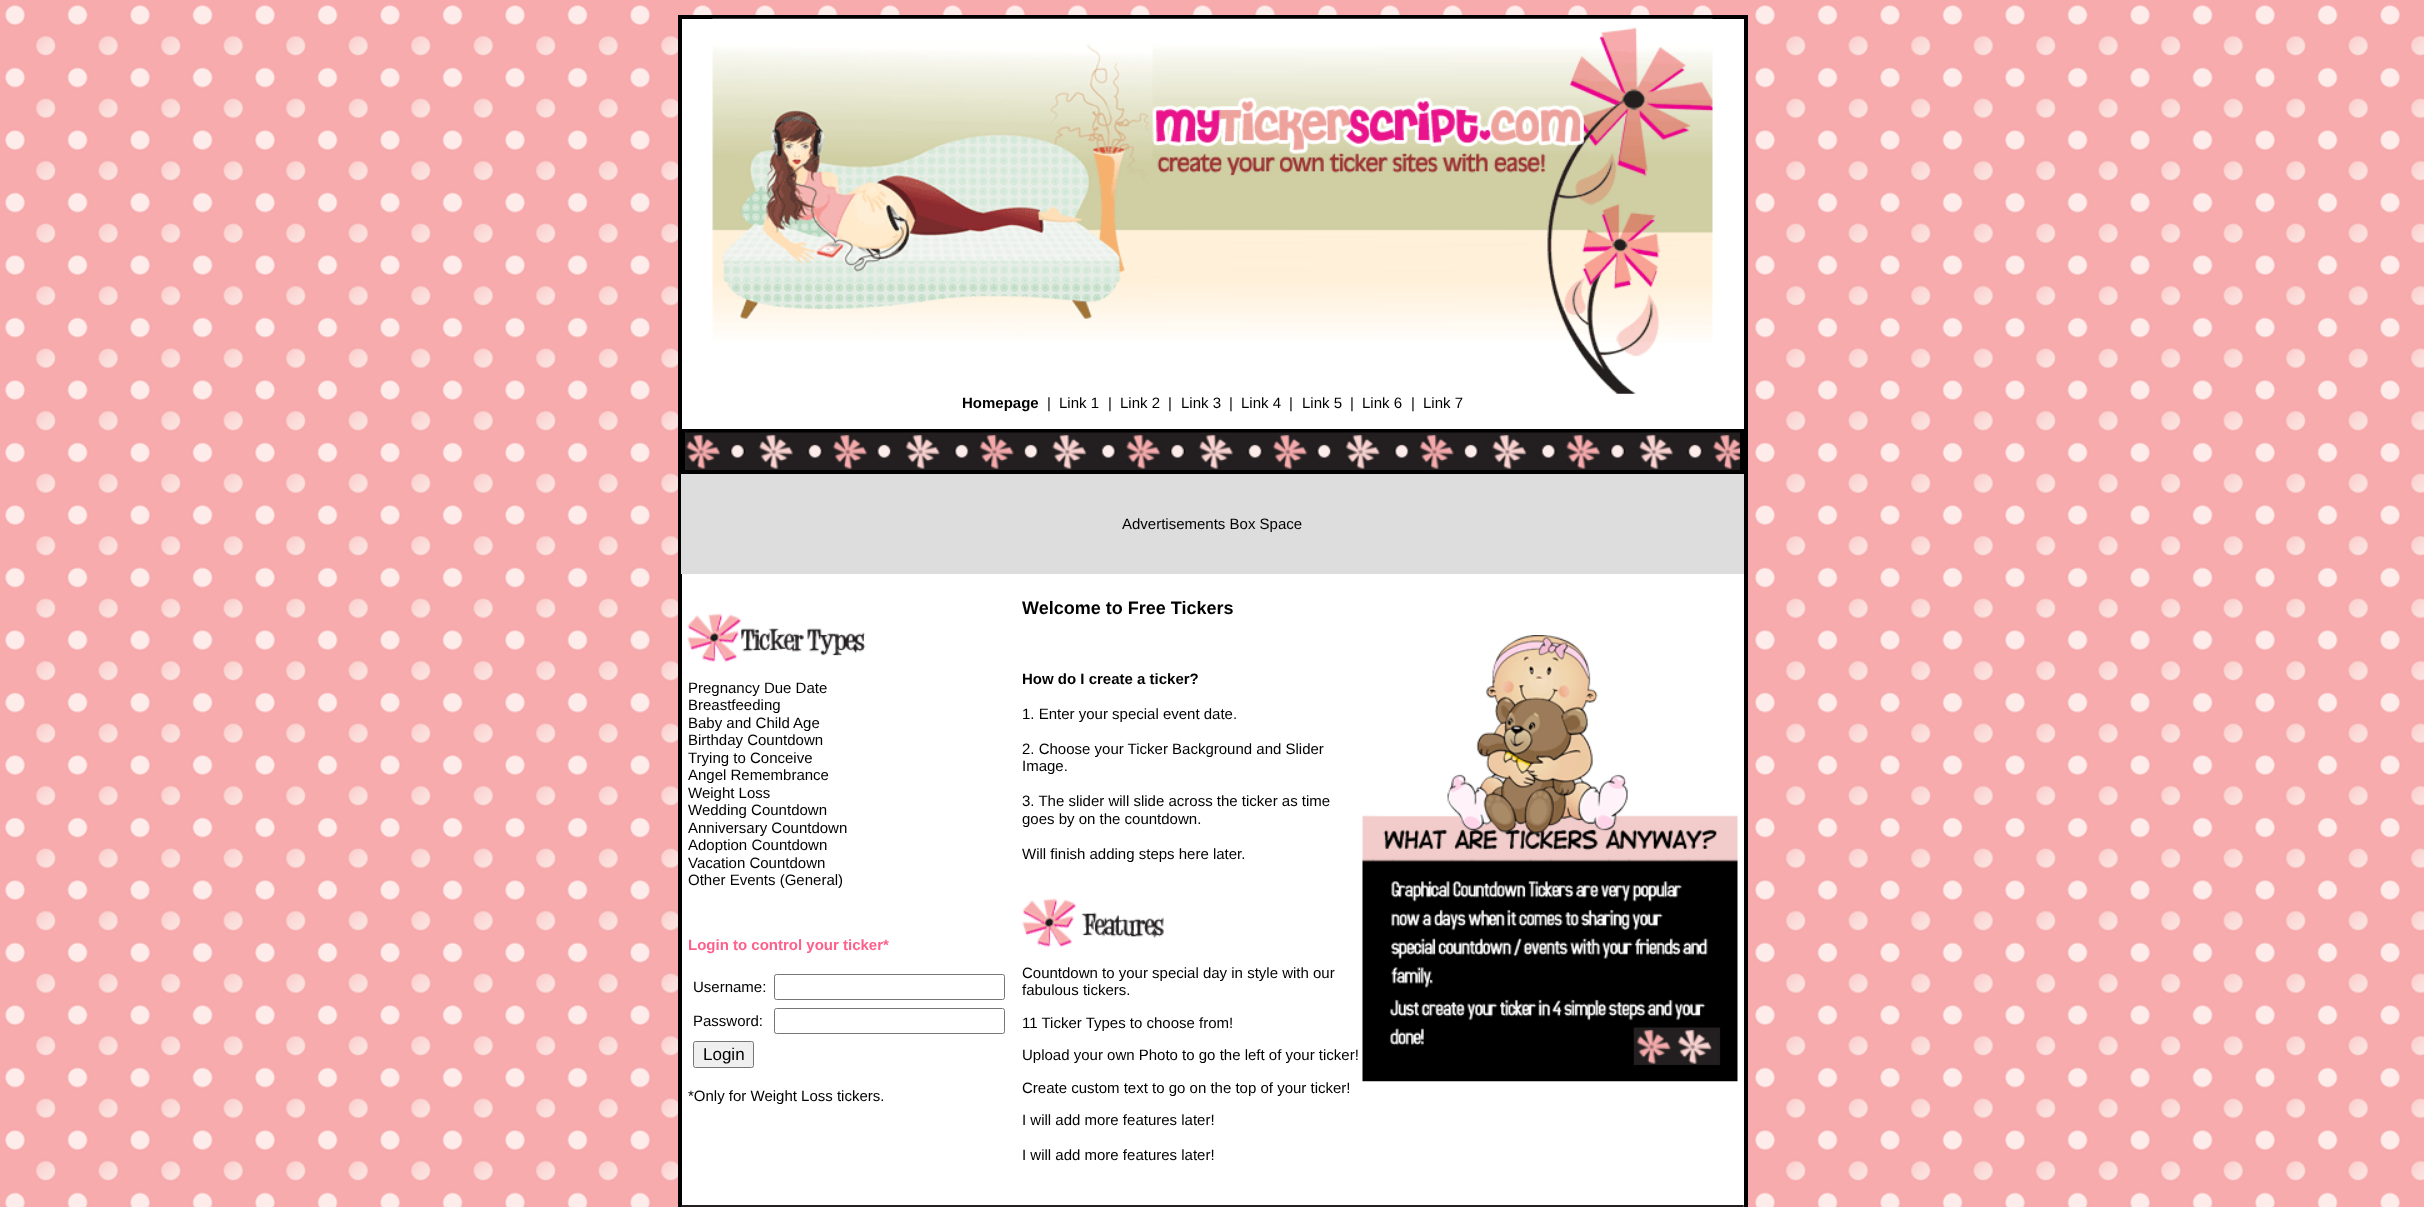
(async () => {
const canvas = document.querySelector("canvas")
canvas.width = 2424
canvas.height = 1207
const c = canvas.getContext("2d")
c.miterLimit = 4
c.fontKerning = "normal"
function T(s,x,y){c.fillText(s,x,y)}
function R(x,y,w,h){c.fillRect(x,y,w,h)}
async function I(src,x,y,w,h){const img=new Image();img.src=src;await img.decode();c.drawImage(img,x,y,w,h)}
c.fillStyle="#f7abad"
R(0,0,2424,1207)
await I("1.png",5,5,2419,1202)
c.fillStyle="#fff"
c.beginPath()
c.rect(680,17,1066,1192)
c.fill()
c.strokeStyle="#000"
c.lineWidth=4
c.stroke()
await I("2.png",712,18,1001,376)
c.font="bold 15px Liberation Sans"
c.fillStyle="#000"
T("Homepage",962,408)
c.font="15px Liberation Sans"
T("|",1047,408)
T("Link 1",1059,408)
T("|",1108,408)
T("Link 2",1120,408)
T("|",1168,408)
T("Link 3",1181,408)
T("|",1229,408)
T("Link 4",1241,408)
T("|",1289,408)
T("Link 5",1302,408)
T("|",1350,408)
T("Link 6",1362,408)
T("|",1411,408)
T("Link 7",1423,408)
c.strokeRect(683,431,1059,41)
await I("3.png",685,432,1055,38)
c.fillStyle="#ddd"
R(681,474,1063,100)
c.fillStyle="#000"
T("Advertisements Box Space",1122,529)
await I("4.png",687,613,179,50)
T("Pregnancy Due Date",688,693)
T("Breastfeeding",688,710)
T("Baby and Child Age",688,728)
T("Birthday Countdown",688,745)
T("Trying to Conceive",688,763)
T("Angel Remembrance",688,780)
T("Weight Loss",688,798)
T("Wedding Countdown",688,815)
T("Anniversary Countdown",688,833)
T("Adoption Countdown",688,850)
T("Vacation Countdown",688,868)
T("Other Events (General)",688,885)
c.font="bold 15px Liberation Sans"
c.fillStyle="#fd618b"
T("Login to control your ticker*",688,950)
c.font="15px Liberation Sans"
c.fillStyle="#000"
T("Username:",693,992)
c.beginPath()
c.roundRect(774.5,974.5,230,25,2)
c.strokeStyle="#767676"
c.lineWidth=1
c.stroke()
T("Password:",693,1026)
c.beginPath()
c.roundRect(774.5,1008.5,230,25,2)
c.stroke()
c.fillStyle="#efefef"
c.beginPath()
c.roundRect(693.5,1041.5,60,26,2)
c.fill()
c.stroke()
c.font="17px Liberation Sans"
c.fillStyle="#000"
T("Login",703,1060)
c.font="15px Liberation Sans"
T("*Only for Weight Loss tickers.",688,1101)
c.font="bold 18px Liberation Sans"
T("Welcome to Free Tickers",1022,614)
c.font="bold 15px Liberation Sans"
T("How do I create a ticker?",1022,684)
await I("5.png",1362,635,376,447)
c.font="15px Liberation Sans"
T("1. Enter your special event date.",1022,719)
T("2. Choose your Ticker Background and Slider",1022,754)
T("Image.",1022,771)
T("3. The slider will slide across the ticker as time",1022,806)
T("goes by on the countdown.",1022,824)
T("Will finish adding steps here later.",1022,859)
await I("6.png",1022,898,142,50)
T("Countdown to your special day in style with our",1022,978)
T("fabulous tickers.",1022,995)
T("11 Ticker Types to choose from!",1022,1028)
T("Upload your own Photo to go the left of your ticker!",1022,1060)
T("Create custom text to go on the top of your ticker!",1022,1093)
T("I will add more features later!",1022,1125)
T("I will add more features later!",1022,1160)
await I("7.png",681,1205,1063,2)
})()
